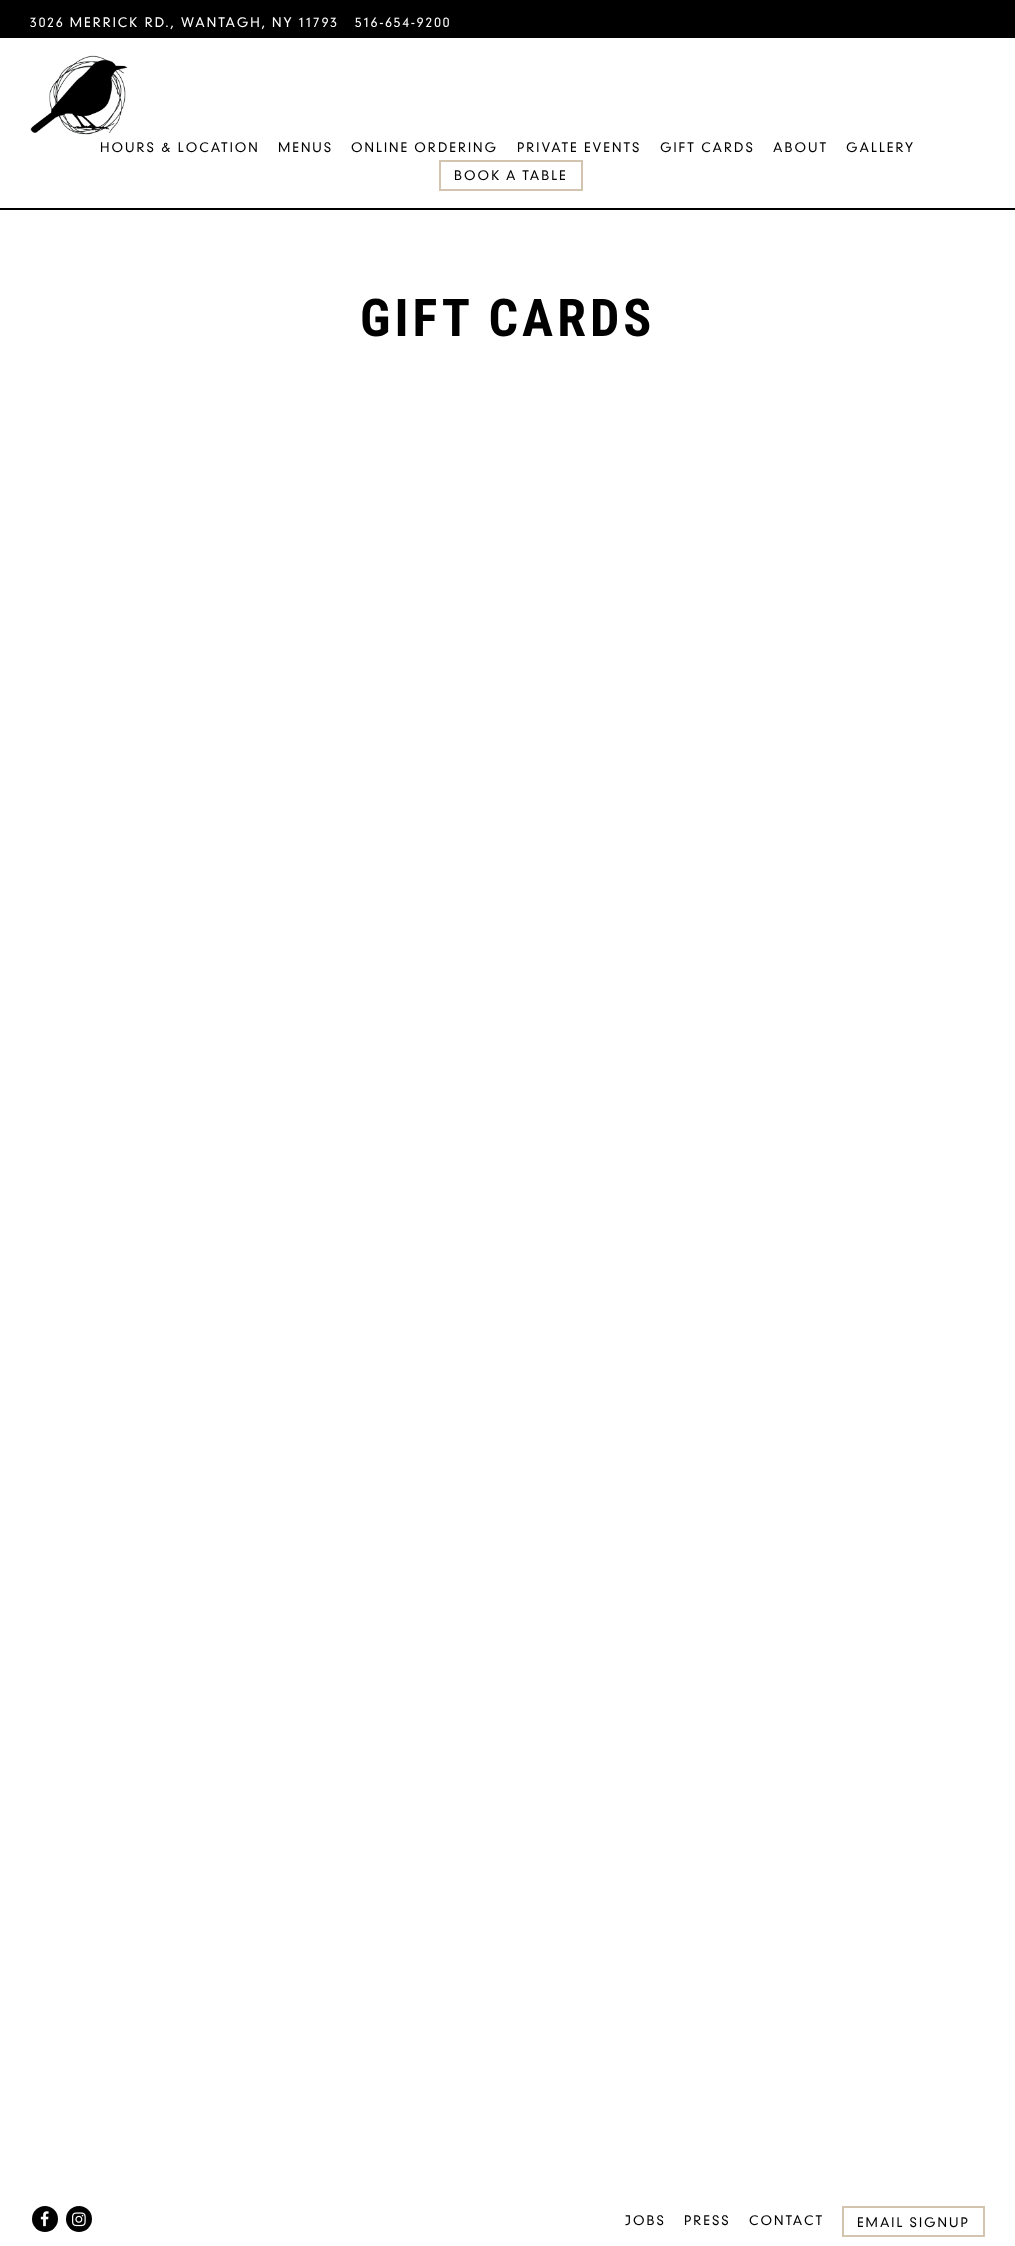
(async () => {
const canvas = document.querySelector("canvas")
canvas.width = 1015
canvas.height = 2246
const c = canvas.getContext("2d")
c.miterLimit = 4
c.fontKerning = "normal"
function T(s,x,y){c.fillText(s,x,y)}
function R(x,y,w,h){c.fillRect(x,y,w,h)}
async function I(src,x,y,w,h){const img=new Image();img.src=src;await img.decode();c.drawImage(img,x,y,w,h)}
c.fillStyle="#fff"
R(0,0,1015,2246)
c.fillStyle="#000"
R(0,0,1015,38)
c.letterSpacing="2px"
c.font="300 12.75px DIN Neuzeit"
c.fillStyle="#fff"
T("3026 MERRICK RD.,",30,27)
T("WANTAGH, NY 11793",181,27)
T("516-654-9200",355,27)
c.fillStyle="#000"
R(0,208,1015,2)
await I("1.png",30,55,98,80)
T("HOURS & LOCATION",100,152)
T("MENUS",278,152)
T("ONLINE ORDERING",351,152)
T("PRIVATE EVENTS",517,152)
T("GIFT CARDS",660,152)
T("ABOUT",773,152)
T("GALLERY",846,152)
c.strokeStyle="#d2c4af"
c.lineWidth=2
c.strokeRect(440,161,142,29)
T("BOOK A TABLE",454,180)
c.letterSpacing="4px"
c.font="bold 52px Roboto Condensed"
T("GIFT CARDS",360,336)
c.beginPath()
c.arc(45,2219,13,0,7)
c.fill()
await I("2.png",40,2211,9,16)
c.beginPath()
c.arc(79,2219,13,0,7)
c.fill()
await I("3.png",72,2212,14,15)
c.letterSpacing="2px"
c.font="300 12.75px DIN Neuzeit"
T("JOBS",625,2225)
T("PRESS",684,2225)
T("CONTACT",749,2225)
c.strokeRect(843,2207,141,29)
T("EMAIL SIGNUP",857,2227)
})()
